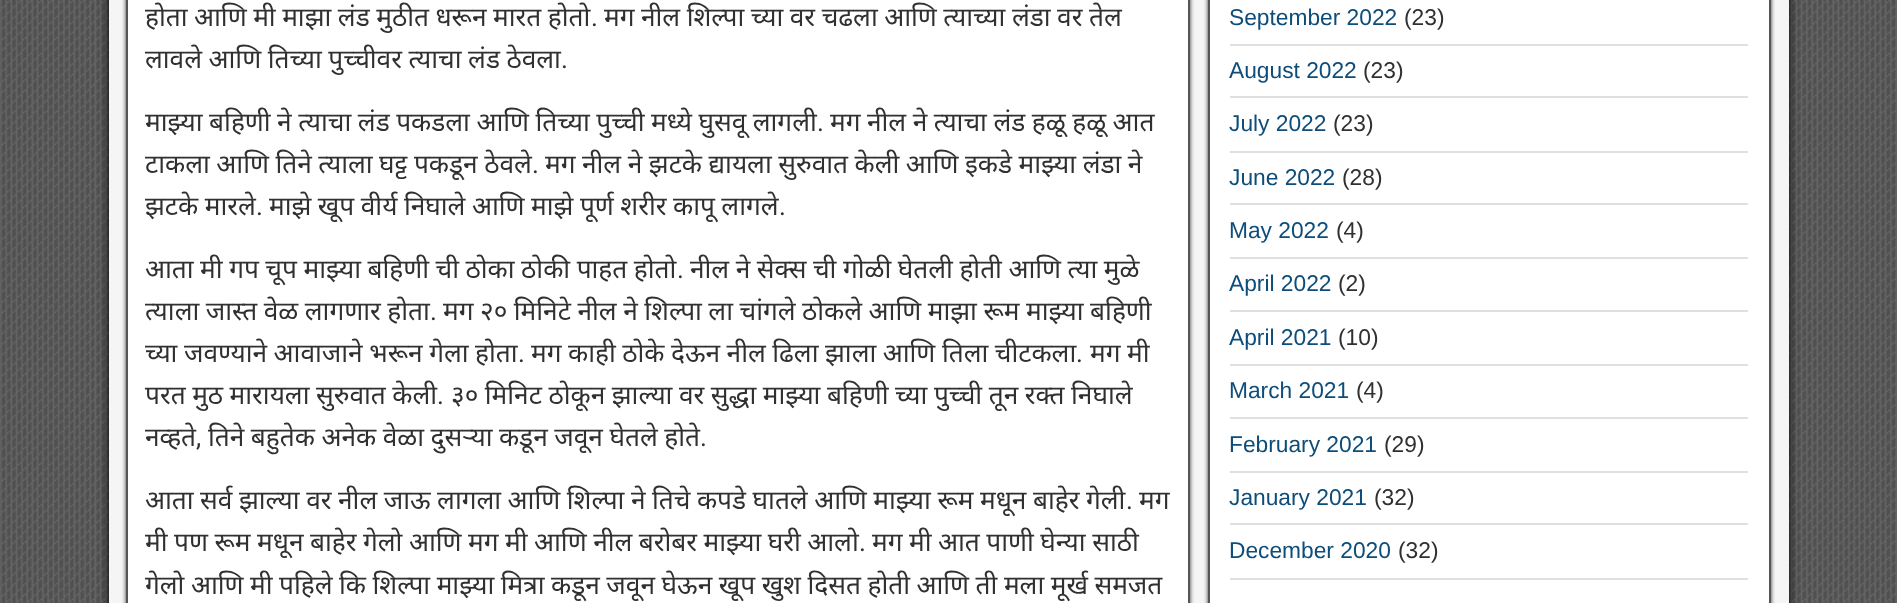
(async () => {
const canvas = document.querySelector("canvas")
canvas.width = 1897
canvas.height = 603
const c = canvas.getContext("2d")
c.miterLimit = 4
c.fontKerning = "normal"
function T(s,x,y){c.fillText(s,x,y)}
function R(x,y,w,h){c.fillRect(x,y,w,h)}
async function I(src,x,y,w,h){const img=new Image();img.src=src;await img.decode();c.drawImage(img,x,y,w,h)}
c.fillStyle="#505050"
R(0,0,1897,603)
await I("1.png",0,0,1897,603)
c.fillStyle="#000"
c.filter="blur(5px)"
c.beginPath()
c.rect(109,-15,1680,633)
c.fill()
c.filter="none"
c.fillStyle="#f5f5f5"
R(109,0,1680,603)
c.fillStyle="#333"
c.filter="blur(2px)"
c.beginPath()
c.rect(126,-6,1064,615)
c.fill()
c.filter="none"
c.fillStyle="#fff"
c.beginPath()
c.rect(127,-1,1062,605)
c.fill()
c.strokeStyle="#555"
c.lineWidth=2
c.stroke()
c.wordSpacing="-0.3px"
c.font="26.25px Noto Sans"
c.fillStyle="#303030"
T("होता आणि मी माझा लंड मुठीत धरून मारत होतो",145,26)
c.wordSpacing="0px"
c.font="26.25px Roboto"
T(".",591,26)
c.wordSpacing="-0.3px"
c.font="26.25px Noto Sans"
T("मग नील शिल्पा च्या वर चढला आणि त्याच्या लंडा वर तेल",604,26)
T("लावले आणि तिच्या पुच्चीवर त्याचा लंड ठेवला",145,68)
c.wordSpacing="0px"
c.font="26.25px Roboto"
T(".",561,68)
c.wordSpacing="-0.3px"
c.font="26.25px Noto Sans"
T("माझ्या बहिणी ने त्याचा लंड पकडला आणि तिच्या पुच्ची मध्ये घुसवू लागली",145,131)
c.wordSpacing="0px"
c.font="26.25px Roboto"
T(".",817,131)
c.wordSpacing="-0.3px"
c.font="26.25px Noto Sans"
T("मग नील ने त्याचा लंड हळू हळू आत",830,131)
T("टाकला आणि तिने त्याला घट्ट पकडून ठेवले",145,173)
c.wordSpacing="0px"
c.font="26.25px Roboto"
T(".",532,173)
c.wordSpacing="-0.3px"
c.font="26.25px Noto Sans"
T("मग नील ने झटके द्यायला सुरुवात केली आणि इकडे माझ्या लंडा ने",545,173)
T("झटके मारले",145,215)
c.wordSpacing="0px"
c.font="26.25px Roboto"
T(".",256,215)
c.wordSpacing="-0.3px"
c.font="26.25px Noto Sans"
T("माझे खूप वीर्य निघाले आणि माझे पूर्ण शरीर कापू लागले",269,215)
c.wordSpacing="0px"
c.font="26.25px Roboto"
T(".",779,215)
c.wordSpacing="-0.3px"
c.font="26.25px Noto Sans"
T("आता मी गप चूप माझ्या बहिणी ची ठोका ठोकी पाहत होतो",145,278)
c.wordSpacing="0px"
c.font="26.25px Roboto"
T(".",677,278)
c.wordSpacing="-0.3px"
c.font="26.25px Noto Sans"
T("नील ने सेक्स ची गोळी घेतली होती आणि त्या मुळे",690,278)
T("त्याला जास्त वेळ लागणार होता",145,320)
c.wordSpacing="0px"
c.font="26.25px Roboto"
T(".",430,320)
c.wordSpacing="-0.3px"
c.font="26.25px Noto Sans"
T("मग २० मिनिटे नील ने शिल्पा ला चांगले ठोकले आणि माझा रूम माझ्या बहिणी",443,320)
T("च्या जवण्याने आवाजाने भरून गेला होता",145,362)
c.wordSpacing="0px"
c.font="26.25px Roboto"
T(".",518,362)
c.wordSpacing="-0.3px"
c.font="26.25px Noto Sans"
T("मग काही ठोके देऊन नील ढिला झाला आणि तिला चीटकला",531,362)
c.wordSpacing="0px"
c.font="26.25px Roboto"
T(".",1076,362)
c.wordSpacing="-0.3px"
c.font="26.25px Noto Sans"
T("मग मी",1090,362)
T("परत मुठ मारायला सुरुवात केली",145,404)
c.wordSpacing="0px"
c.font="26.25px Roboto"
T(".",437,404)
c.wordSpacing="-0.3px"
c.font="26.25px Noto Sans"
T("३० मिनिट ठोकून झाल्या वर सुद्धा माझ्या बहिणी च्या पुच्ची तून रक्त निघाले",451,404)
c.wordSpacing="0px"
T("नव्हते",145,446)
c.font="26.25px Roboto"
T(",",196,446)
c.wordSpacing="-0.3px"
c.font="26.25px Noto Sans"
T("तिने बहुतेक अनेक वेळा दुसऱ्या कडून जवून घेतले होते",208,446)
c.wordSpacing="0px"
c.font="26.25px Roboto"
T(".",700,446)
c.wordSpacing="-0.3px"
c.font="26.25px Noto Sans"
T("आता सर्व झाल्या वर नील जाऊ लागला आणि शिल्पा ने तिचे कपडे घातले आणि माझ्या रूम मधून बाहेर गेली",145,509)
c.wordSpacing="0px"
c.font="26.25px Roboto"
T(".",1126,509)
c.font="26.25px Noto Sans"
T("मग",1139,509)
c.wordSpacing="-0.3px"
T("मी पण रूम मधून बाहेर गेलो आणि मग मी आणि नील बरोबर माझ्या घरी आलो",145,551)
c.wordSpacing="0px"
c.font="26.25px Roboto"
T(".",859,551)
c.wordSpacing="-0.3px"
c.font="26.25px Noto Sans"
T("मग मी आत पाणी घेन्या साठी",872,551)
T("गेलो आणि मी पहिले कि शिल्पा माझ्या मित्रा कडून जवून घेऊन खूप खुश दिसत होती आणि ती मला मूर्ख समजत",145,594)
c.fillStyle="#333"
c.filter="blur(2px)"
c.beginPath()
c.rect(1208,-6,563,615)
c.fill()
c.filter="none"
c.fillStyle="#fff"
c.beginPath()
c.rect(1209,-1,561,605)
c.fill()
c.stroke()
c.fillStyle="#e0e0e0"
R(1230,44,518,2)
c.wordSpacing="0px"
c.font="22.75px Liberation Sans"
c.fillStyle="#0e4d7a"
T("September 2022",1229,25)
c.fillStyle="#303030"
T("(23)",1404,25)
c.fillStyle="#e0e0e0"
R(1230,96,518,2)
c.fillStyle="#0e4d7a"
T("August 2022",1229,78)
c.fillStyle="#303030"
T("(23)",1363,78)
c.fillStyle="#e0e0e0"
R(1230,151,518,2)
c.fillStyle="#0e4d7a"
T("July 2022",1229,131)
c.fillStyle="#303030"
T("(23)",1333,131)
c.fillStyle="#e0e0e0"
R(1230,203,518,2)
c.fillStyle="#0e4d7a"
T("June 2022",1229,185)
c.fillStyle="#303030"
T("(28)",1342,185)
c.fillStyle="#e0e0e0"
R(1230,257,518,2)
c.fillStyle="#0e4d7a"
T("May 2022",1229,238)
c.fillStyle="#303030"
T("(4)",1336,238)
c.fillStyle="#e0e0e0"
R(1230,310,518,2)
c.fillStyle="#0e4d7a"
T("April 2022",1229,291)
c.fillStyle="#303030"
T("(2)",1338,291)
c.fillStyle="#e0e0e0"
R(1230,364,518,2)
c.fillStyle="#0e4d7a"
T("April 2021",1229,345)
c.fillStyle="#303030"
T("(10)",1338,345)
c.fillStyle="#e0e0e0"
R(1230,417,518,2)
c.fillStyle="#0e4d7a"
T("March 2021",1229,398)
c.fillStyle="#303030"
T("(4)",1356,398)
c.fillStyle="#e0e0e0"
R(1230,471,518,2)
c.fillStyle="#0e4d7a"
T("February 2021",1229,452)
c.fillStyle="#303030"
T("(29)",1384,452)
c.fillStyle="#e0e0e0"
R(1230,523,518,2)
c.fillStyle="#0e4d7a"
T("January 2021",1229,505)
c.fillStyle="#303030"
T("(32)",1374,505)
c.fillStyle="#e0e0e0"
R(1230,578,518,2)
c.fillStyle="#0e4d7a"
T("December 2020",1229,558)
c.fillStyle="#303030"
T("(32)",1398,558)
})()
